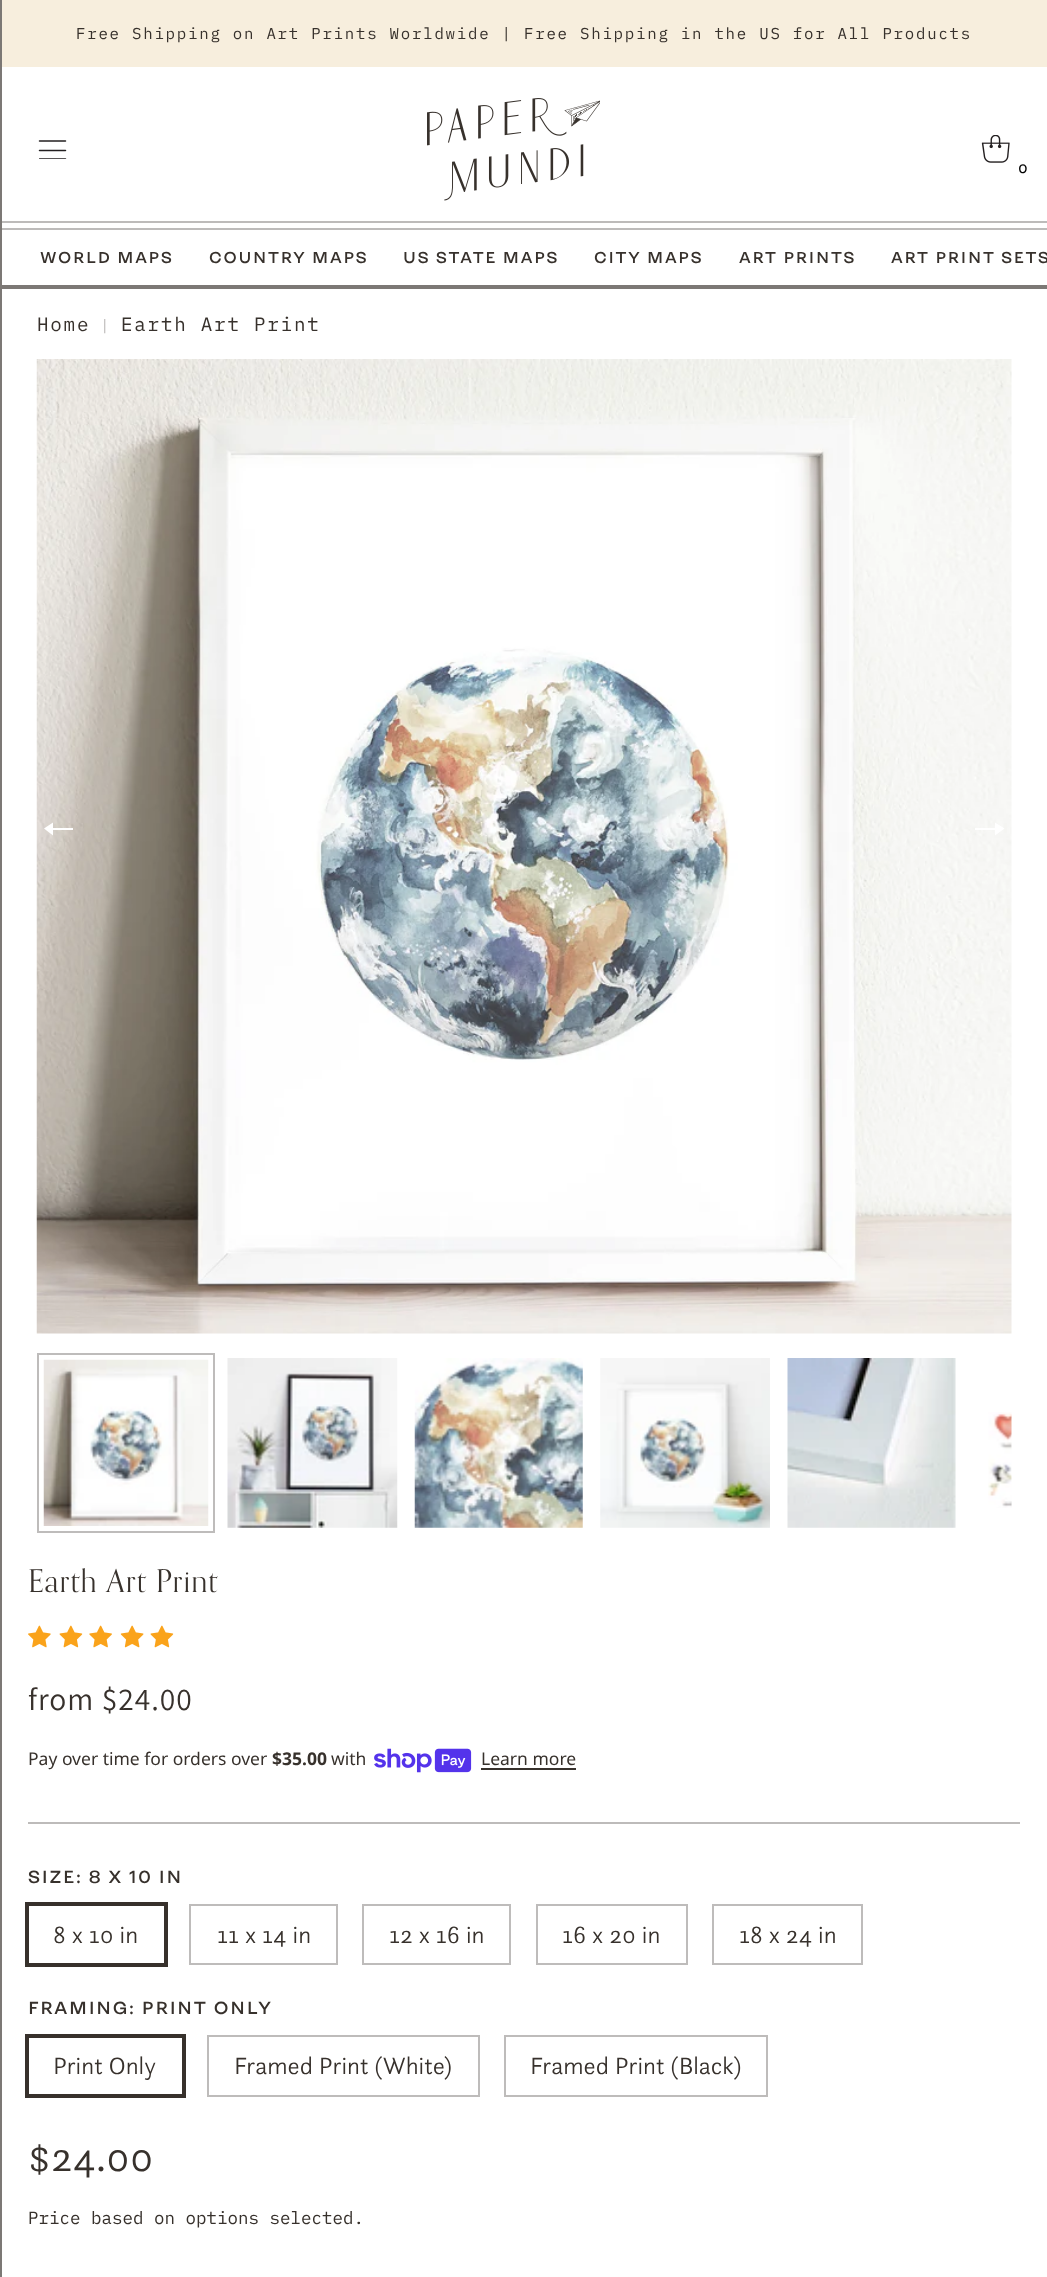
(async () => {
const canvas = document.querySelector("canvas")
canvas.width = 1047
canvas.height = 2277
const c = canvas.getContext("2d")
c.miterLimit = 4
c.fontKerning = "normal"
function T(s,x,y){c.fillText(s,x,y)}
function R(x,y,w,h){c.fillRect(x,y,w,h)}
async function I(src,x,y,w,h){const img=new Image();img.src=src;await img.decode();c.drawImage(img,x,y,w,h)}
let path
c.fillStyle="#fff"
R(0,0,1047,2277)
c.fillStyle="#7c7875"
R(0,0,2,2277)
c.fillStyle="#f7eedd"
R(2,0,1045,67)
c.letterSpacing="1.75px"
c.font="15.75px IBM Plex Mono"
c.fillStyle="#37312c"
T("Free Shipping on Art Prints Worldwide | Free Shipping in the US for All Products",76,39)
c.fillStyle="#7c7875"
R(2,285,1045,4)
path = new Path2D("M39.5 141h26m-26 9.5h26")
c.strokeStyle="#231f20"
c.lineWidth=1.5
c.lineCap="round"
c.stroke(path)
c.save()
c.beginPath()
c.rect(39,140,28,19)
c.clip()
path = new Path2D("M39.5 159h26")
c.stroke(path)
c.restore()
await I("1.png",427,98,173,103)
await I("2.png",981,135,29,28)
c.letterSpacing="1px"
c.font="17.5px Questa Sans"
c.fillStyle="#000"
T("0",1018,173)
c.fillStyle="#bdbbba"
R(2,221,1045,2)
R(2,228,1045,2)
c.letterSpacing="1.75px"
c.font="500 15.75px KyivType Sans"
c.fillStyle="#37312c"
T("WORLD MAPS",40,263)
T("COUNTRY MAPS",209,263)
T("US STATE MAPS",403,263)
T("CITY MAPS",594,263)
T("ART PRINTS",739,263)
T("ART PRINT SETS",891,263)
c.font="19.25px IBM Plex Mono"
T("Home",37,331)
c.font="15.75px IBM Plex Mono"
c.fillStyle="#bdbbba"
T("|",100,331)
c.font="19.25px IBM Plex Mono"
c.fillStyle="#37312c"
T("Earth Art Print",121,331)
await I("3.png",36,359,976,975)
c.fillStyle="#fff"
path = new Path2D("M53 822.5l-9 6l9 7z")
c.fill(path)
R(50,828,23,2)
path = new Path2D("M995 822.5l9.5 6l-9.5 7z")
c.fill(path)
R(975,828,24,2)
c.strokeStyle="#bebcbb"
c.lineWidth=2
c.strokeRect(38,1354,176,178)
await I("4.png",43,1359,166,167)
await I("5.png",227,1358,171,170)
await I("6.png",414,1358,169,170)
await I("7.png",600,1358,170,170)
await I("8.png",787,1358,169,170)
await I("9.png",988,1412,24,96)
c.letterSpacing="1px"
c.font="31.5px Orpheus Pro"
c.fillStyle="#37312c"
T("Earth Art Print",28,1592)
await I("10.png",28,1625,23,23)
await I("11.png",59,1625,24,23)
await I("12.png",89,1625,23,23)
await I("13.png",120,1625,24,23)
await I("11.png",150,1625,24,23)
c.font="31.5px Assistant"
T("from $24.00",28,1710)
c.letterSpacing="0px"
c.font="17.5px Noto Sans"
T("Pay over time for orders over",28,1765)
c.font="bold 17.5px Noto Sans"
T("$35.00",272,1765)
c.font="17.5px Noto Sans"
T("with",331,1765)
await I("14.png",374,1748,98,25)
T("Learn more",481,1765)
R(481,1768,95,2)
c.fillStyle="#bdbbba"
R(28,1822,992,2)
c.letterSpacing="1.75px"
c.font="500 17.5px KyivType Sans"
c.fillStyle="#37312c"
T("SIZE: 8 X 10 IN",28,1883)
c.strokeStyle="#37312c"
c.lineWidth=4
c.strokeRect(27,1904,139,61)
c.letterSpacing="0px"
c.font="300 24.5px Questa Sans"
T("8 x 10 in",53,1943)
c.strokeStyle="#bebcbb"
c.lineWidth=2
c.strokeRect(190,1905,147,59)
T("11 x 14 in",217,1943)
c.strokeRect(363,1905,147,59)
T("12 x 16 in",389,1943)
c.strokeRect(537,1905,150,59)
T("16 x 20 in",562,1943)
c.strokeRect(713,1905,149,59)
T("18 x 24 in",739,1943)
c.letterSpacing="1.75px"
c.font="500 17.5px KyivType Sans"
T("FRAMING: PRINT ONLY",28,2014)
c.strokeStyle="#37312c"
c.lineWidth=4
c.strokeRect(27,2036,157,60)
c.letterSpacing="0px"
c.font="300 24.5px Questa Sans"
T("Print Only",53,2074)
c.strokeStyle="#bebcbb"
c.lineWidth=2
c.strokeRect(208,2036,271,60)
T("Framed Print (White)",234,2074)
c.strokeRect(505,2036,262,60)
T("Framed Print (Black)",530,2074)
c.font="300 42px Questa Sans"
T("$24.00",28,2171)
c.font="17.5px IBM Plex Mono"
T("Price based on options selected.",28,2224)
})()
